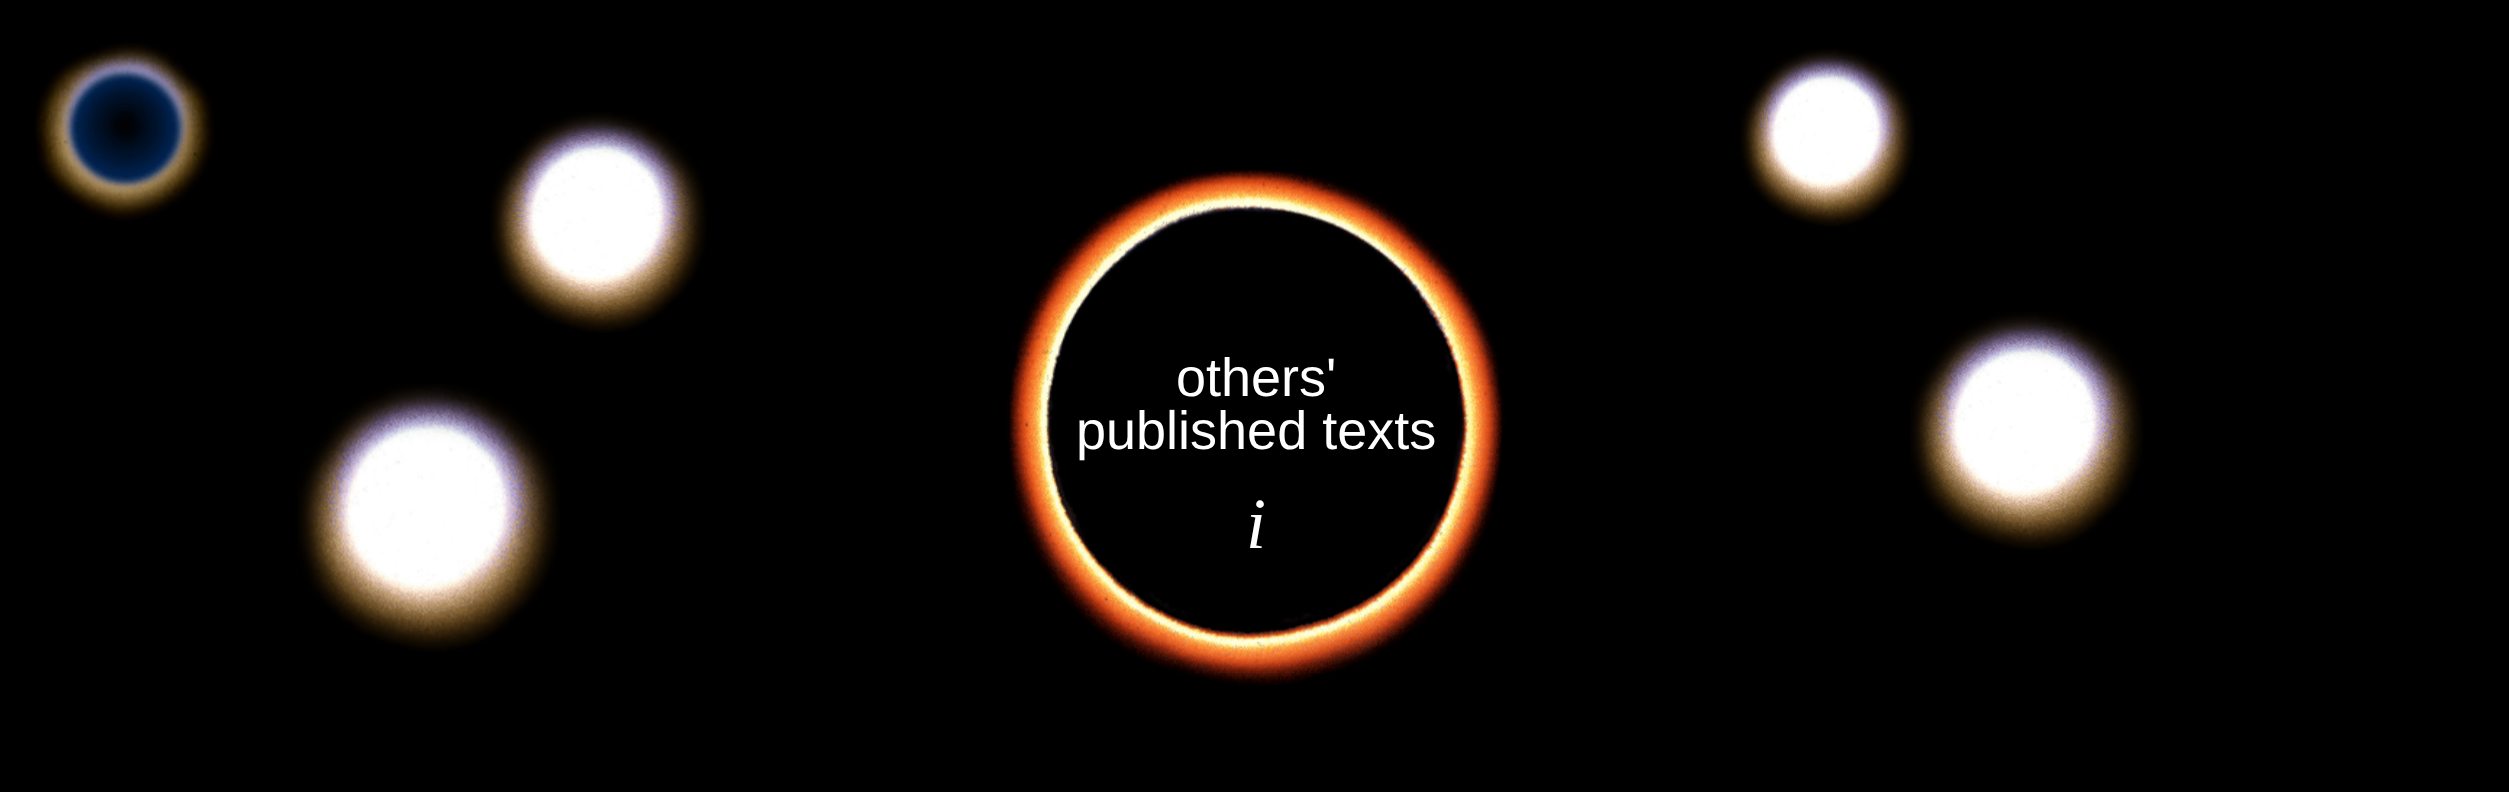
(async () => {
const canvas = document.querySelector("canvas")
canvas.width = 2509
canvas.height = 792
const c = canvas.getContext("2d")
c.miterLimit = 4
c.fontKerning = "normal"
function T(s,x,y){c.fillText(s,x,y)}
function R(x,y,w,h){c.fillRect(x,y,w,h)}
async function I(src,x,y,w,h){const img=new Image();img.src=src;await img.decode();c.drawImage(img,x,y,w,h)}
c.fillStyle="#000"
R(0,0,2509,792)
await I("1.png",35,43,180,178)
await I("2.png",490,112,217,221)
await I("3.png",1006,169,499,517)
await I("4.png",1740,49,175,178)
await I("5.png",1910,312,233,238)
await I("6.png",297,384,263,268)
c.font="54px Liberation Sans"
c.fillStyle="#fff"
T("others'",1176,396)
T("published texts",1076,449)
c.font="italic 72px Liberation Serif"
T("i",1246,548)
})()
